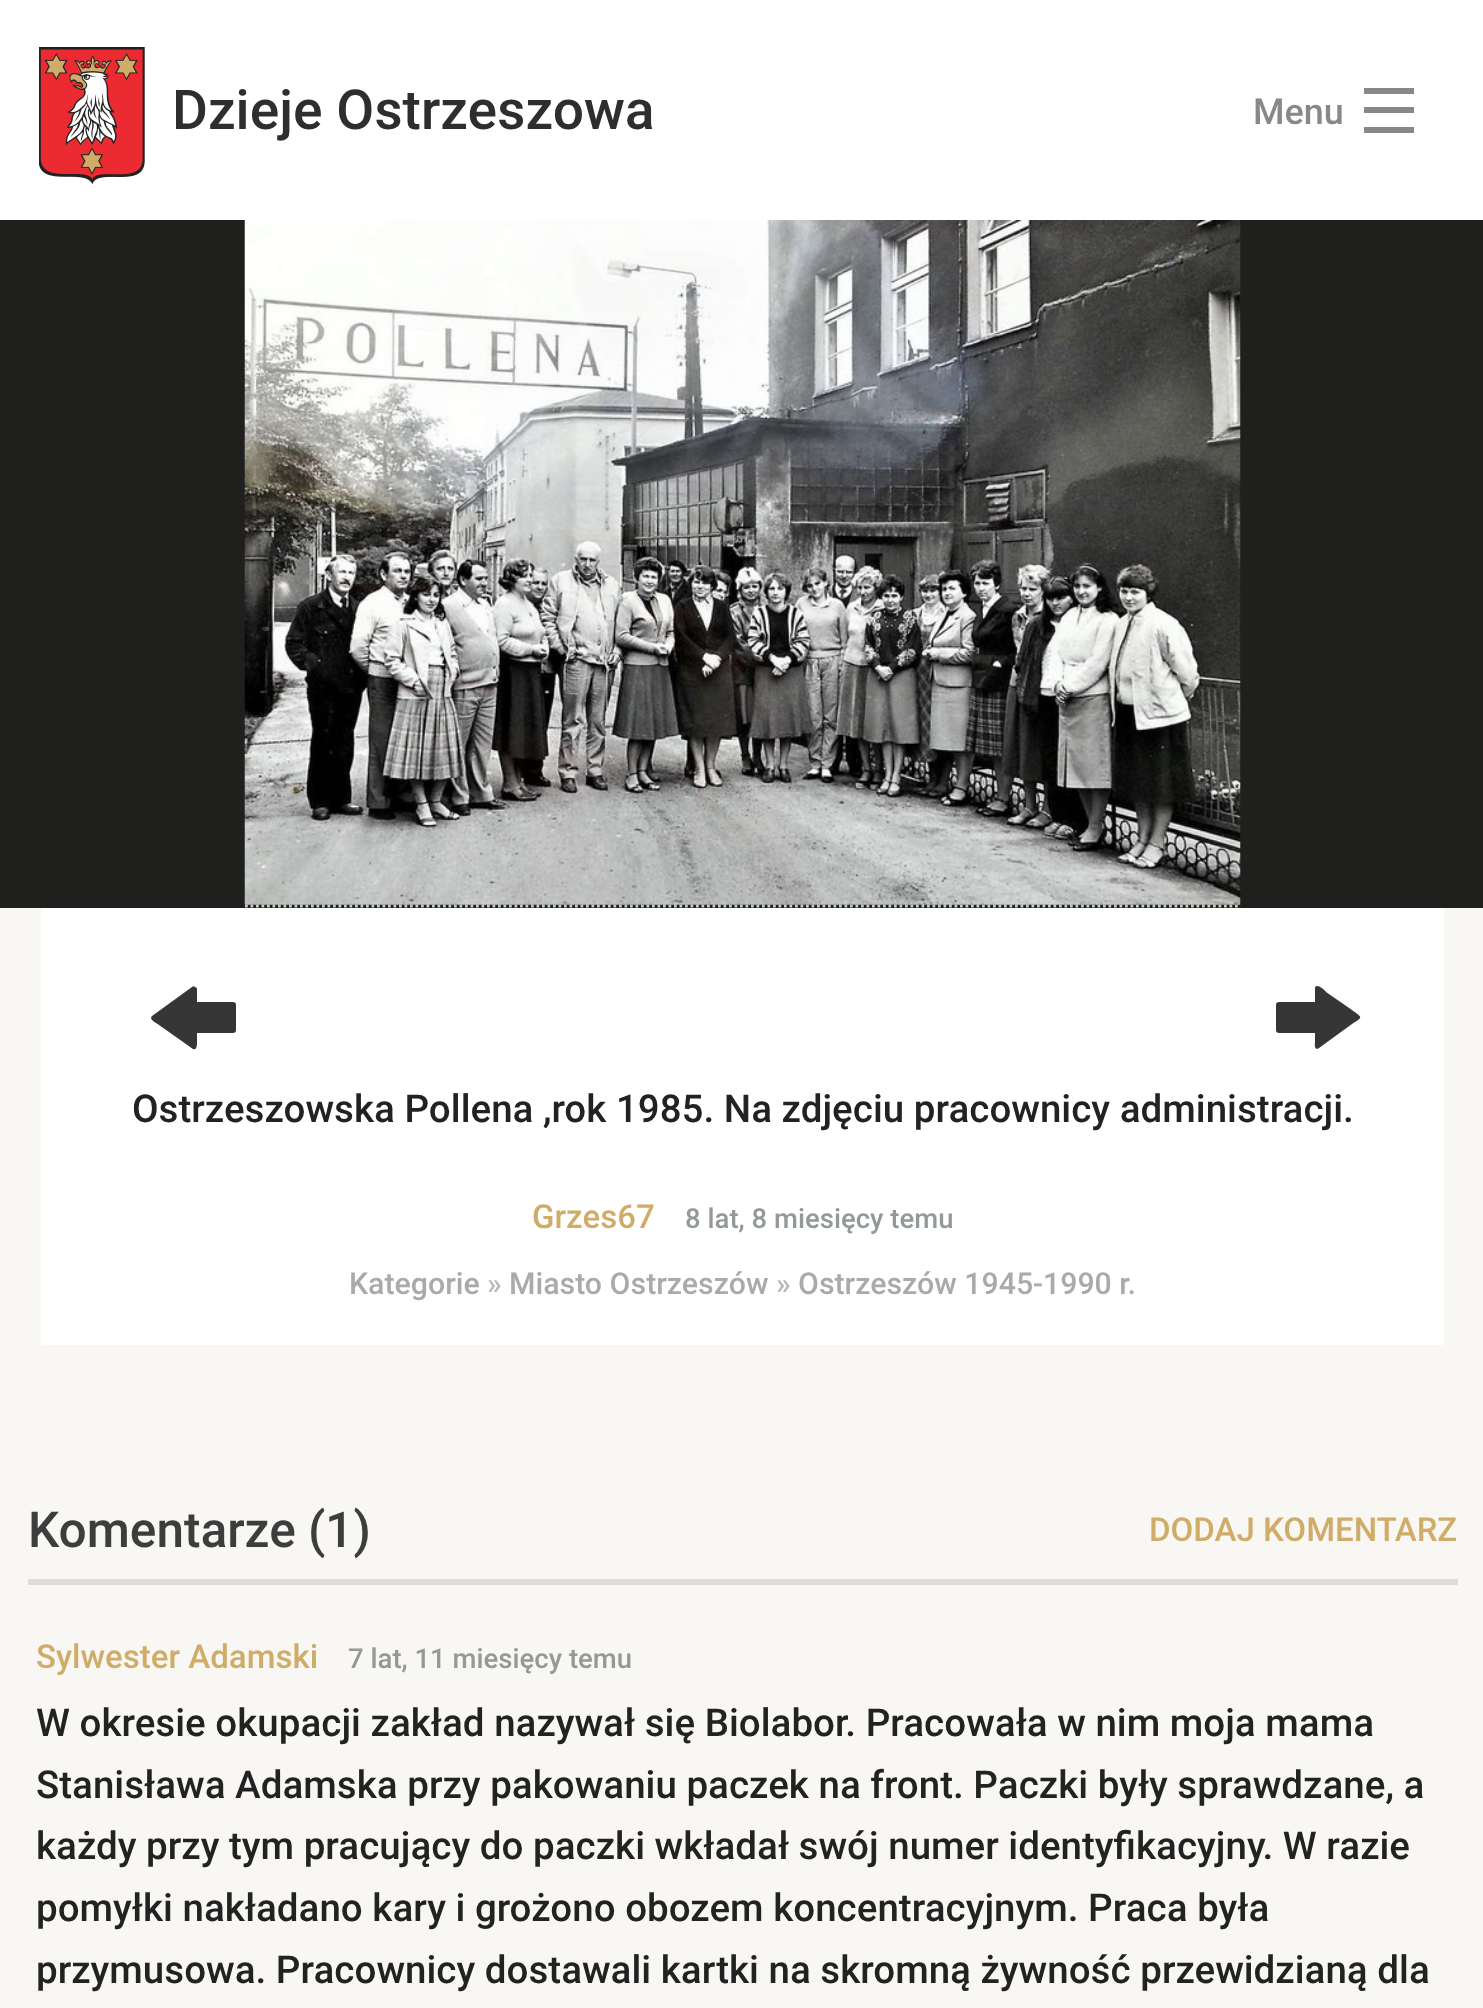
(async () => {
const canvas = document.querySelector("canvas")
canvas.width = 1483
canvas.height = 2008
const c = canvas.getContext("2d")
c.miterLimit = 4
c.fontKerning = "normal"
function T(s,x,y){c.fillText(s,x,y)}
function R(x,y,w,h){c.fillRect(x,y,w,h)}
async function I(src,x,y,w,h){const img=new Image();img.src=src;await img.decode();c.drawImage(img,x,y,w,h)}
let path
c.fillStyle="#f8f7f3"
R(0,0,1483,2008)
c.fillStyle="#fff"
R(0,0,1483,220)
await I("1.png",39,47,106,137)
c.font="500 55px Roboto"
c.fillStyle="#2e2e2e"
T("Dzieje Ostrzeszowa",172,129)
c.font="500 36px Roboto"
c.fillStyle="#888"
T("Menu",1253,124)
R(1364,127,50,6)
R(1364,107,50,6)
R(1364,88,50,6)
c.fillStyle="#1f1f1e"
R(0,220,1483,688)
path = new Path2D("M245 906h995")
c.strokeStyle="#ccc"
c.lineWidth=2.8
c.setLineDash([2.75,2.75])
c.stroke(path)
await I("2.png",244,220,997,685)
c.fillStyle="#fff"
R(41,908,1403,437)
c.fillStyle="#363636"
path = new Path2D("M192 987c1-1 2-1 3 0c1 0 2 1 2 2v13h36c2 0 3 1 3 3v25c0 2-1 3-3 3h-36v6c0 2 1 12-4 10l-34-24c0-1-11-5-7-9z")
c.fill(path)
path = new Path2D("M1319 1048l-2 1c-3-1-2-5-2-7v-9h-36c-2 0-3-1-3-3v-25c0-2 1-3 3-3h36v-14c1-6 11 3 11 4l26 18c11 8 11 7 0 14z")
c.fill(path)
c.font="500 38.5px Roboto"
c.fillStyle="#222"
T("Ostrzeszowska Pollena ,rok 1985. Na zdjęciu pracownicy administracji.",132,1122)
c.font="500 33px Roboto"
c.fillStyle="#d0ac69"
T("Grzes67",532,1228)
c.font="500 27.5px Roboto"
c.fillStyle="#939899"
T("8 lat, 8 miesięcy temu",685,1228)
c.font="500 30.25px Roboto"
c.fillStyle="#aaa"
T("Kategorie",349,1294)
c.fillStyle="#b9b9b9"
T("»",487,1294)
c.fillStyle="#aaa"
T("Miasto Ostrzeszów",509,1294)
c.fillStyle="#b9b9b9"
T("»",776,1294)
c.fillStyle="#aaa"
T("Ostrzeszów 1945-1990 r.",798,1294)
c.fillStyle="#deddd9"
R(28,1579,1430,6)
c.font="500 49.5px Roboto"
c.fillStyle="#3d3d3d"
T("Komentarze (1)",28,1547)
c.font="500 33px Roboto"
c.fillStyle="#d0ac69"
T("DODAJ KOMENTARZ",1149,1541)
T("Sylwester Adamski",36,1668)
c.font="500 27.5px Roboto"
c.fillStyle="#939899"
T("7 lat, 11 miesięcy temu",348,1668)
c.font="500 38.5px Roboto"
c.fillStyle="#222"
T("W okresie okupacji zakład nazywał się Biolabor. Pracowała w nim moja mama",36,1736)
T("Stanisława Adamska przy pakowaniu paczek na front. Paczki były sprawdzane, a",36,1798)
T("każdy przy tym pracujący do paczki wkładał swój numer identyfikacyjny. W razie",36,1859)
T("pomyłki nakładano kary i grożono obozem koncentracyjnym. Praca była",36,1921)
T("przymusowa. Pracownicy dostawali kartki na skromną żywność przewidzianą dla",36,1983)
})()
